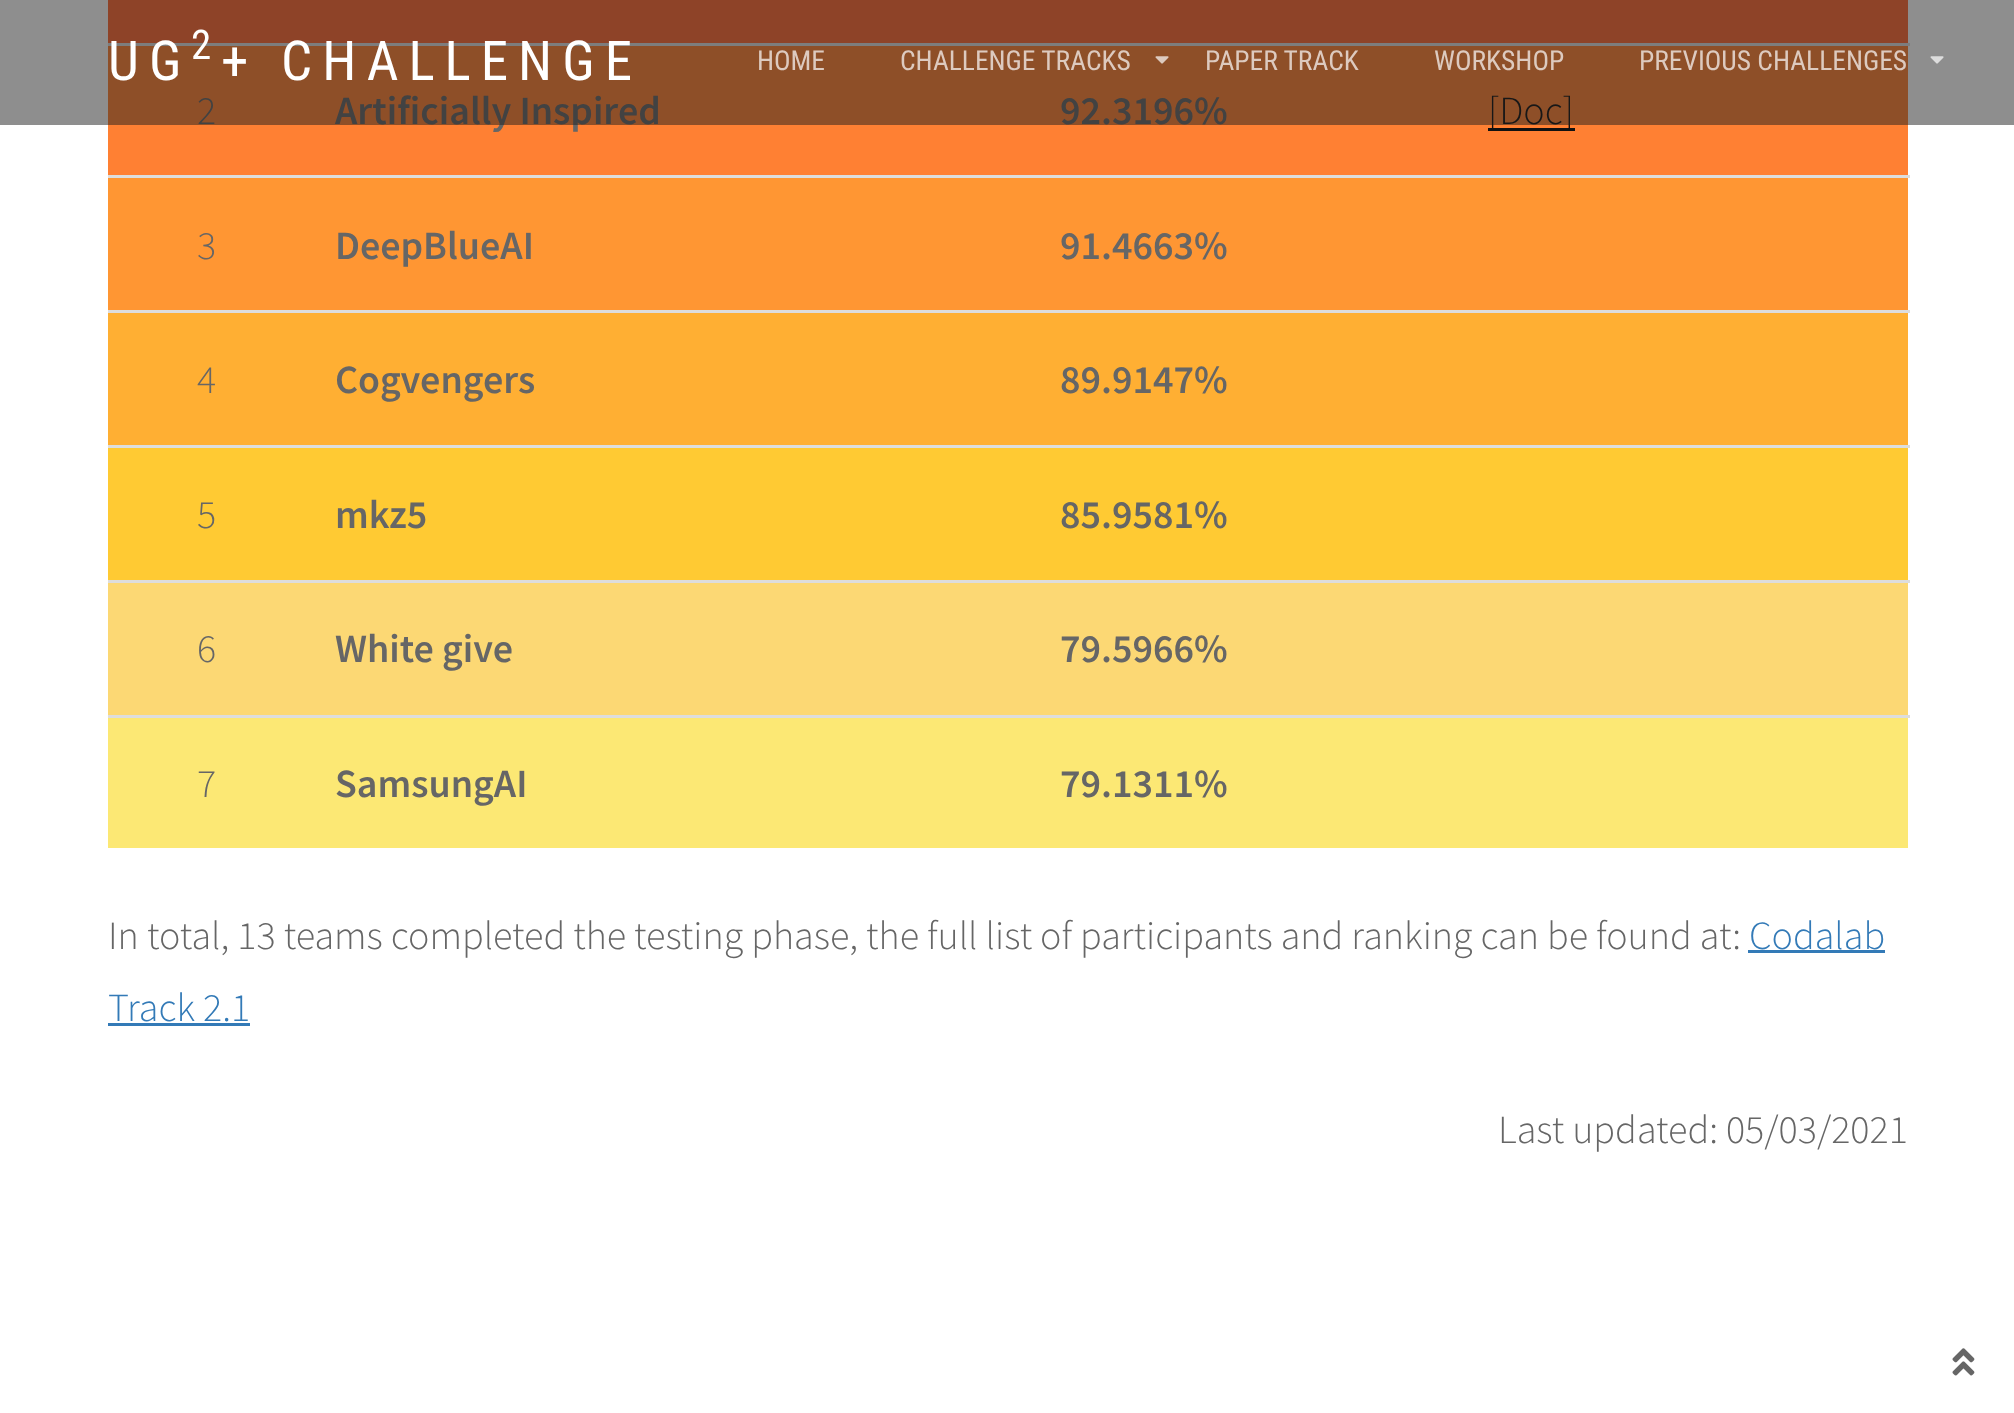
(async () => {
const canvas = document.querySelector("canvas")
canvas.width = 2014
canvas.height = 1413
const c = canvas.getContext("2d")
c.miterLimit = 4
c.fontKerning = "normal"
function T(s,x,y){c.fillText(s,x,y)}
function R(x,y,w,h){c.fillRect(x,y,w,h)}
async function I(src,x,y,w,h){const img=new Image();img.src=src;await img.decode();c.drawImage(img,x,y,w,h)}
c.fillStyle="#fff"
R(0,0,2014,1413)
c.fillStyle="#ff6833"
R(108,0,1800,43)
c.fillStyle="#ff8033"
R(108,46,1800,129)
c.font="300 40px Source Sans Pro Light"
c.fillStyle="#666"
T("2",197,124)
c.font="600 40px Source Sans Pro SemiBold"
T("Artificially Inspired",335,124)
T("92.3196%",1060,124)
c.fillStyle="#ddd"
R(108,43,1802,3)
c.fillStyle="#111"
R(1488,128,87,3)
c.font="300 40px Source Sans Pro Light"
T("[Doc]",1488,124)
c.fillStyle="#1e1e1e80"
R(0,0,2014,125)
c.letterSpacing="10px"
c.font="55px Roboto Condensed"
c.fillStyle="#fff"
T("UG",108,80)
c.font="41px Roboto Condensed"
T("2",191,59)
c.font="55px Roboto Condensed"
T("+ CHALLENGE",221,80)
c.letterSpacing="0px"
c.font="27.5px Roboto Condensed"
c.fillStyle="#ddcabf"
T("HOME",757,70)
T("CHALLENGE TRACKS",900,70)
await I("1.png",1155,56,14,8)
T("PAPER TRACK",1205,70)
T("WORKSHOP",1434,70)
T("PREVIOUS CHALLENGES",1639,70)
await I("2.png",1930,56,14,8)
c.fillStyle="#ff9633"
R(108,178,1800,132)
c.fillStyle="#ddd"
R(108,175,1802,3)
c.font="300 40px Source Sans Pro Light"
c.fillStyle="#666"
T("3",197,259)
c.font="600 40px Source Sans Pro SemiBold"
T("DeepBlueAI",335,259)
T("91.4663%",1060,259)
c.fillStyle="#ffaf33"
R(108,313,1800,132)
c.fillStyle="#ddd"
R(108,310,1802,3)
c.font="300 40px Source Sans Pro Light"
c.fillStyle="#666"
T("4",197,393)
c.font="600 40px Source Sans Pro SemiBold"
T("Cogvengers",335,393)
T("89.9147%",1060,393)
c.fillStyle="#ffca33"
R(108,448,1800,132)
c.fillStyle="#ddd"
R(108,445,1802,3)
c.font="300 40px Source Sans Pro Light"
c.fillStyle="#666"
T("5",197,528)
c.font="600 40px Source Sans Pro SemiBold"
T("mkz5",335,528)
T("85.9581%",1060,528)
c.fillStyle="#fcd874"
R(108,583,1800,132)
c.fillStyle="#ddd"
R(108,580,1802,3)
c.font="300 40px Source Sans Pro Light"
c.fillStyle="#666"
T("6",197,662)
c.font="600 40px Source Sans Pro SemiBold"
T("White give",335,662)
T("79.5966%",1060,662)
c.fillStyle="#fce874"
R(108,718,1800,130)
c.fillStyle="#ddd"
R(108,715,1802,3)
c.font="300 40px Source Sans Pro Light"
c.fillStyle="#666"
T("7",197,797)
c.font="600 40px Source Sans Pro SemiBold"
T("SamsungAI",335,797)
T("79.1311%",1060,797)
c.font="300 40px Source Sans Pro Light"
T("In total, 13 teams completed the testing phase, the full list of participants and ranking can be found at:",108,949)
c.fillStyle="#337ab7"
T("Codalab",1749,949)
R(1748,950,137,3)
T("Track 2.1",108,1021)
R(108,1023,142,3)
c.fillStyle="#666"
T("Last updated: 05/03/2021",1498,1143)
await I("3.png",1952,1348,23,28)
})()
